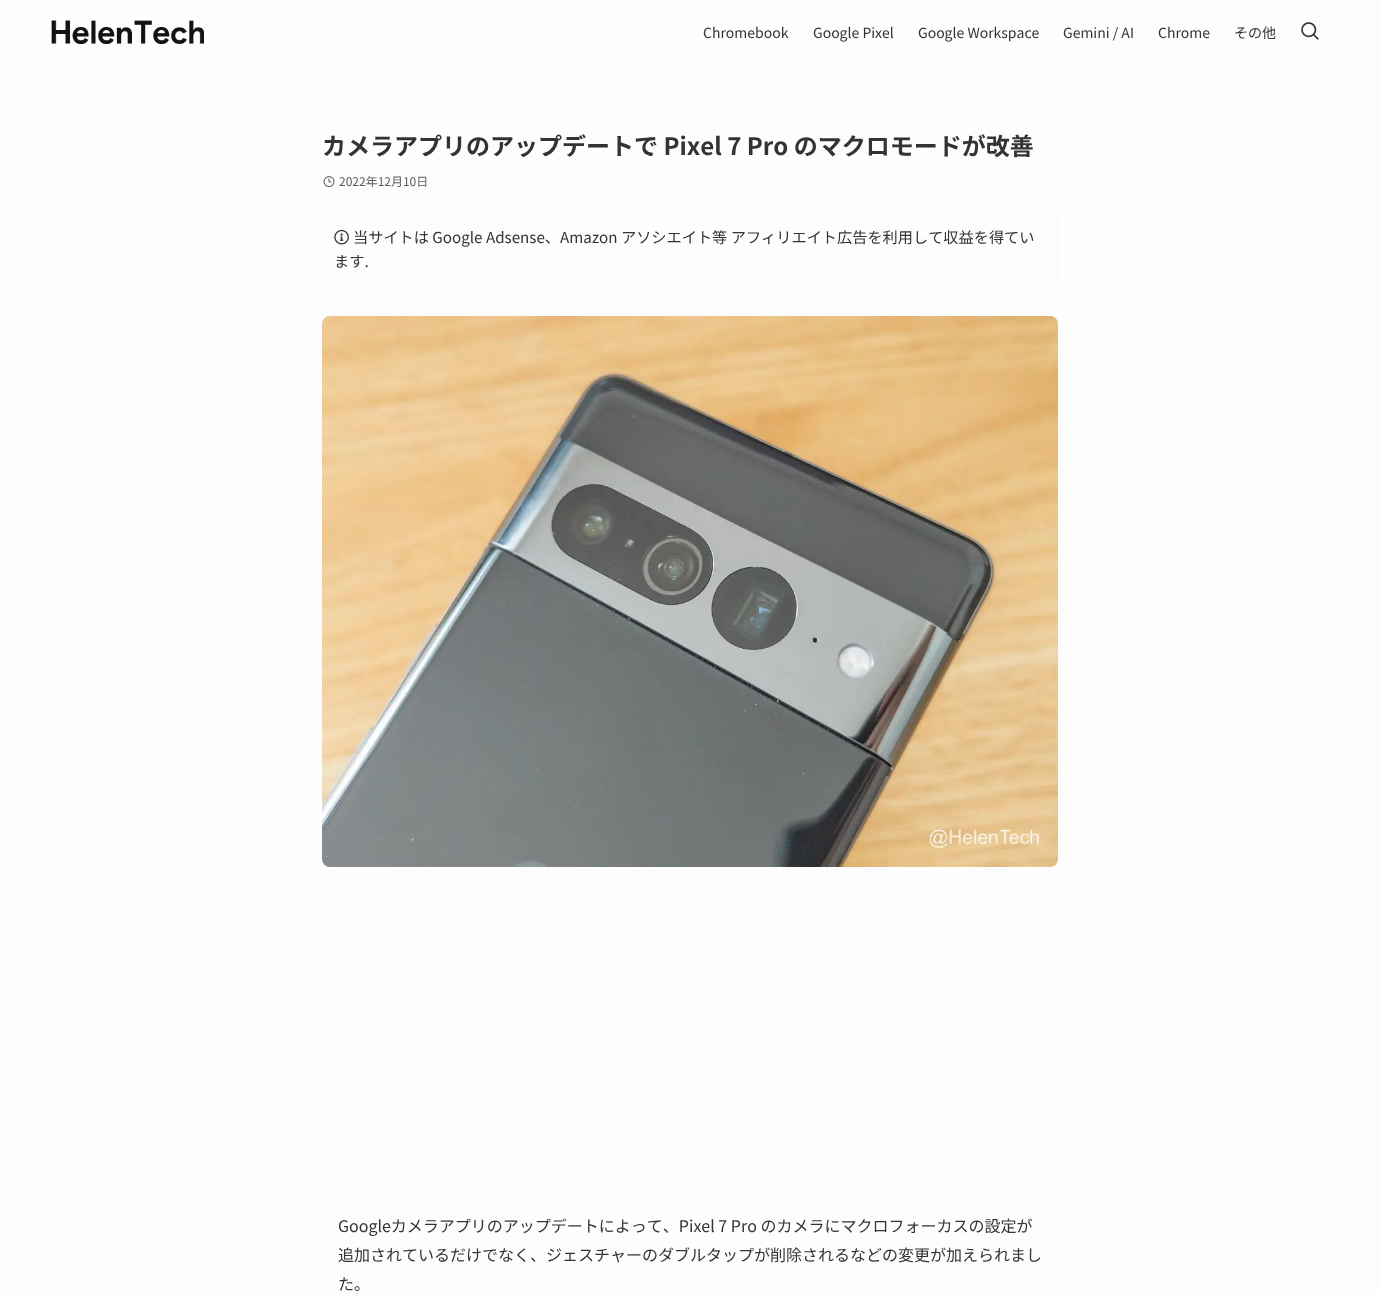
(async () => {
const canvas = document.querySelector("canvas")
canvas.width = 1380
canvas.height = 1294
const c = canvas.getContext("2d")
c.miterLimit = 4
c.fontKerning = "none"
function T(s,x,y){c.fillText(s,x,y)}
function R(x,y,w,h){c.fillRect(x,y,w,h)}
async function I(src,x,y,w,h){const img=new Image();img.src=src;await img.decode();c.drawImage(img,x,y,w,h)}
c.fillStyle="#fdfdfd"
R(0,0,1380,1294)
await I("1.png",51,20,153,24)
c.font="14px Noto Sans JP"
c.fillStyle="#333"
T("Chromebook",703,38)
T("Google Pixel",813,38)
T("Google Workspace",918,38)
T("Gemini / AI",1063,38)
T("Chrome",1158,38)
T("その他",1234,38)
await I("2.png",1301,22,18,18)
c.font="bold 24px Noto Sans JP"
T("カメラアプリのアップデートで Pixel 7 Pro のマクロモードが改善",322,155)
await I("3.png",323,176,12,12)
c.font="12px Noto Sans JP"
c.fillStyle="#5c5c5c"
T("2022年12月10日",339,186)
c.beginPath()
c.roundRect(322.5,213.5,735,70,.5)
c.strokeStyle="#f7f7f7"
c.stroke()
await I("4.png",334,229,15,16)
c.font="15.2px Noto Sans JP"
c.fillStyle="#333"
T("当サイトは Google Adsense、Amazon アソシエイト等 アフィリエイト広告を利用して収益を得てい",353,243)
T("ます.",334,267)
await I("5.png",322,316,736,551)
c.font="16px Noto Sans JP"
T("Googleカメラアプリのアップデートによって、Pixel 7 Pro のカメラにマクロフォーカスの設定が",338,1232)
T("追加されているだけでなく、ジェスチャーのダブルタップが削除されるなどの変更が加えられまし",338,1261)
T("た。",338,1290)
})()
